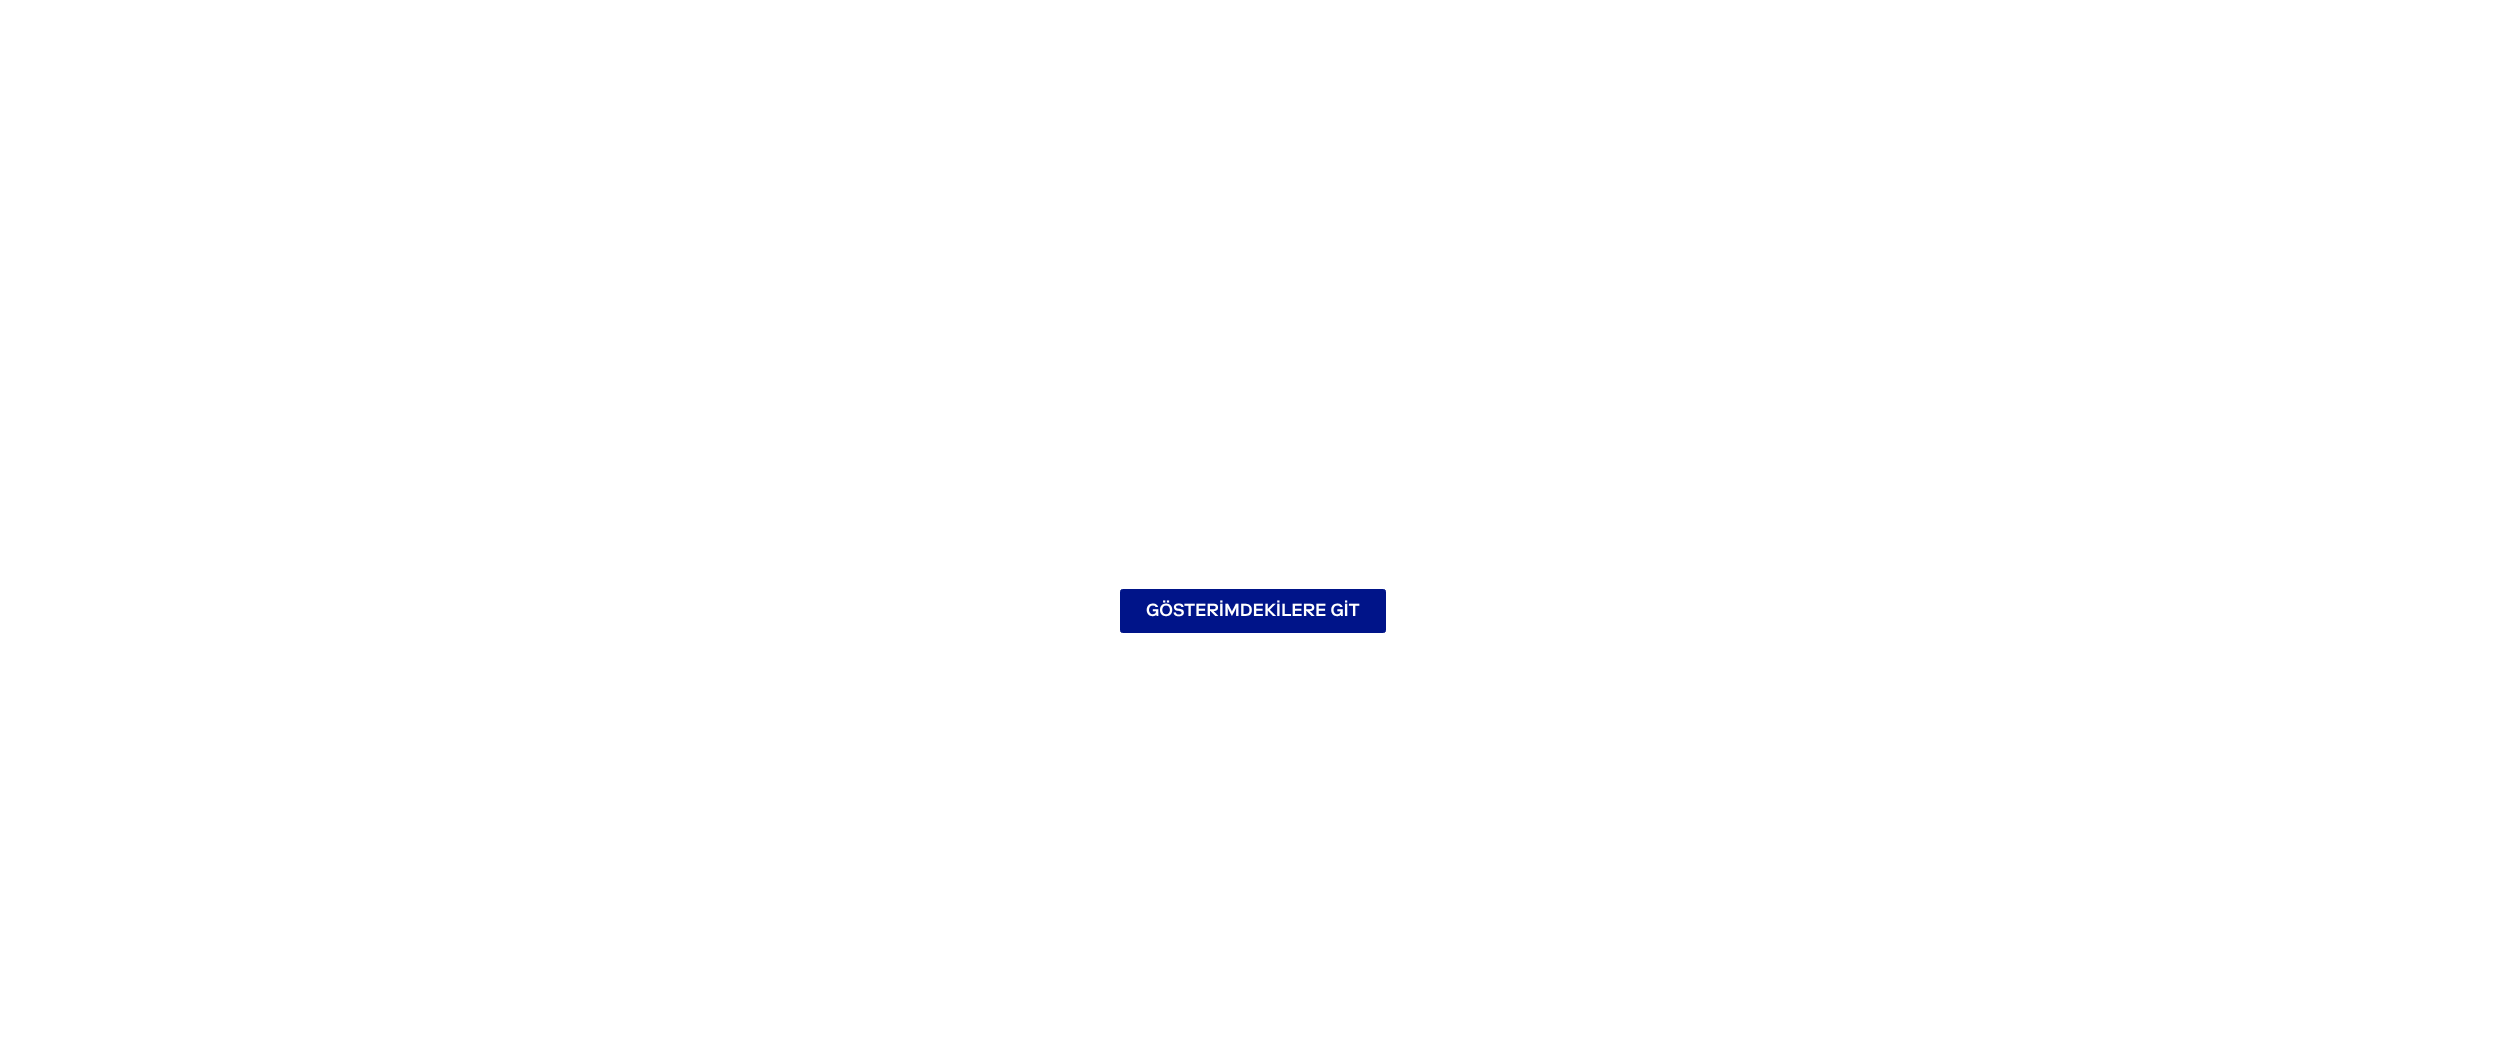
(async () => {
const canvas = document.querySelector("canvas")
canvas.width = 2506
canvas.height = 1050
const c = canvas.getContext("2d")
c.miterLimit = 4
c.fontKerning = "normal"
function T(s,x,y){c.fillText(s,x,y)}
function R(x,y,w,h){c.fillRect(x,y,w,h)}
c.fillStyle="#fff"
R(0,0,2506,1050)
c.fillStyle="#001489"
c.beginPath()
c.roundRect(1120.5,589.5,265,43,2)
c.fill()
c.strokeStyle="#001489"
c.stroke()
c.font="500 17.5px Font"
c.fillStyle="#fff"
T("GÖSTERİMDEKİLERE GİT",1146,616)
})()
